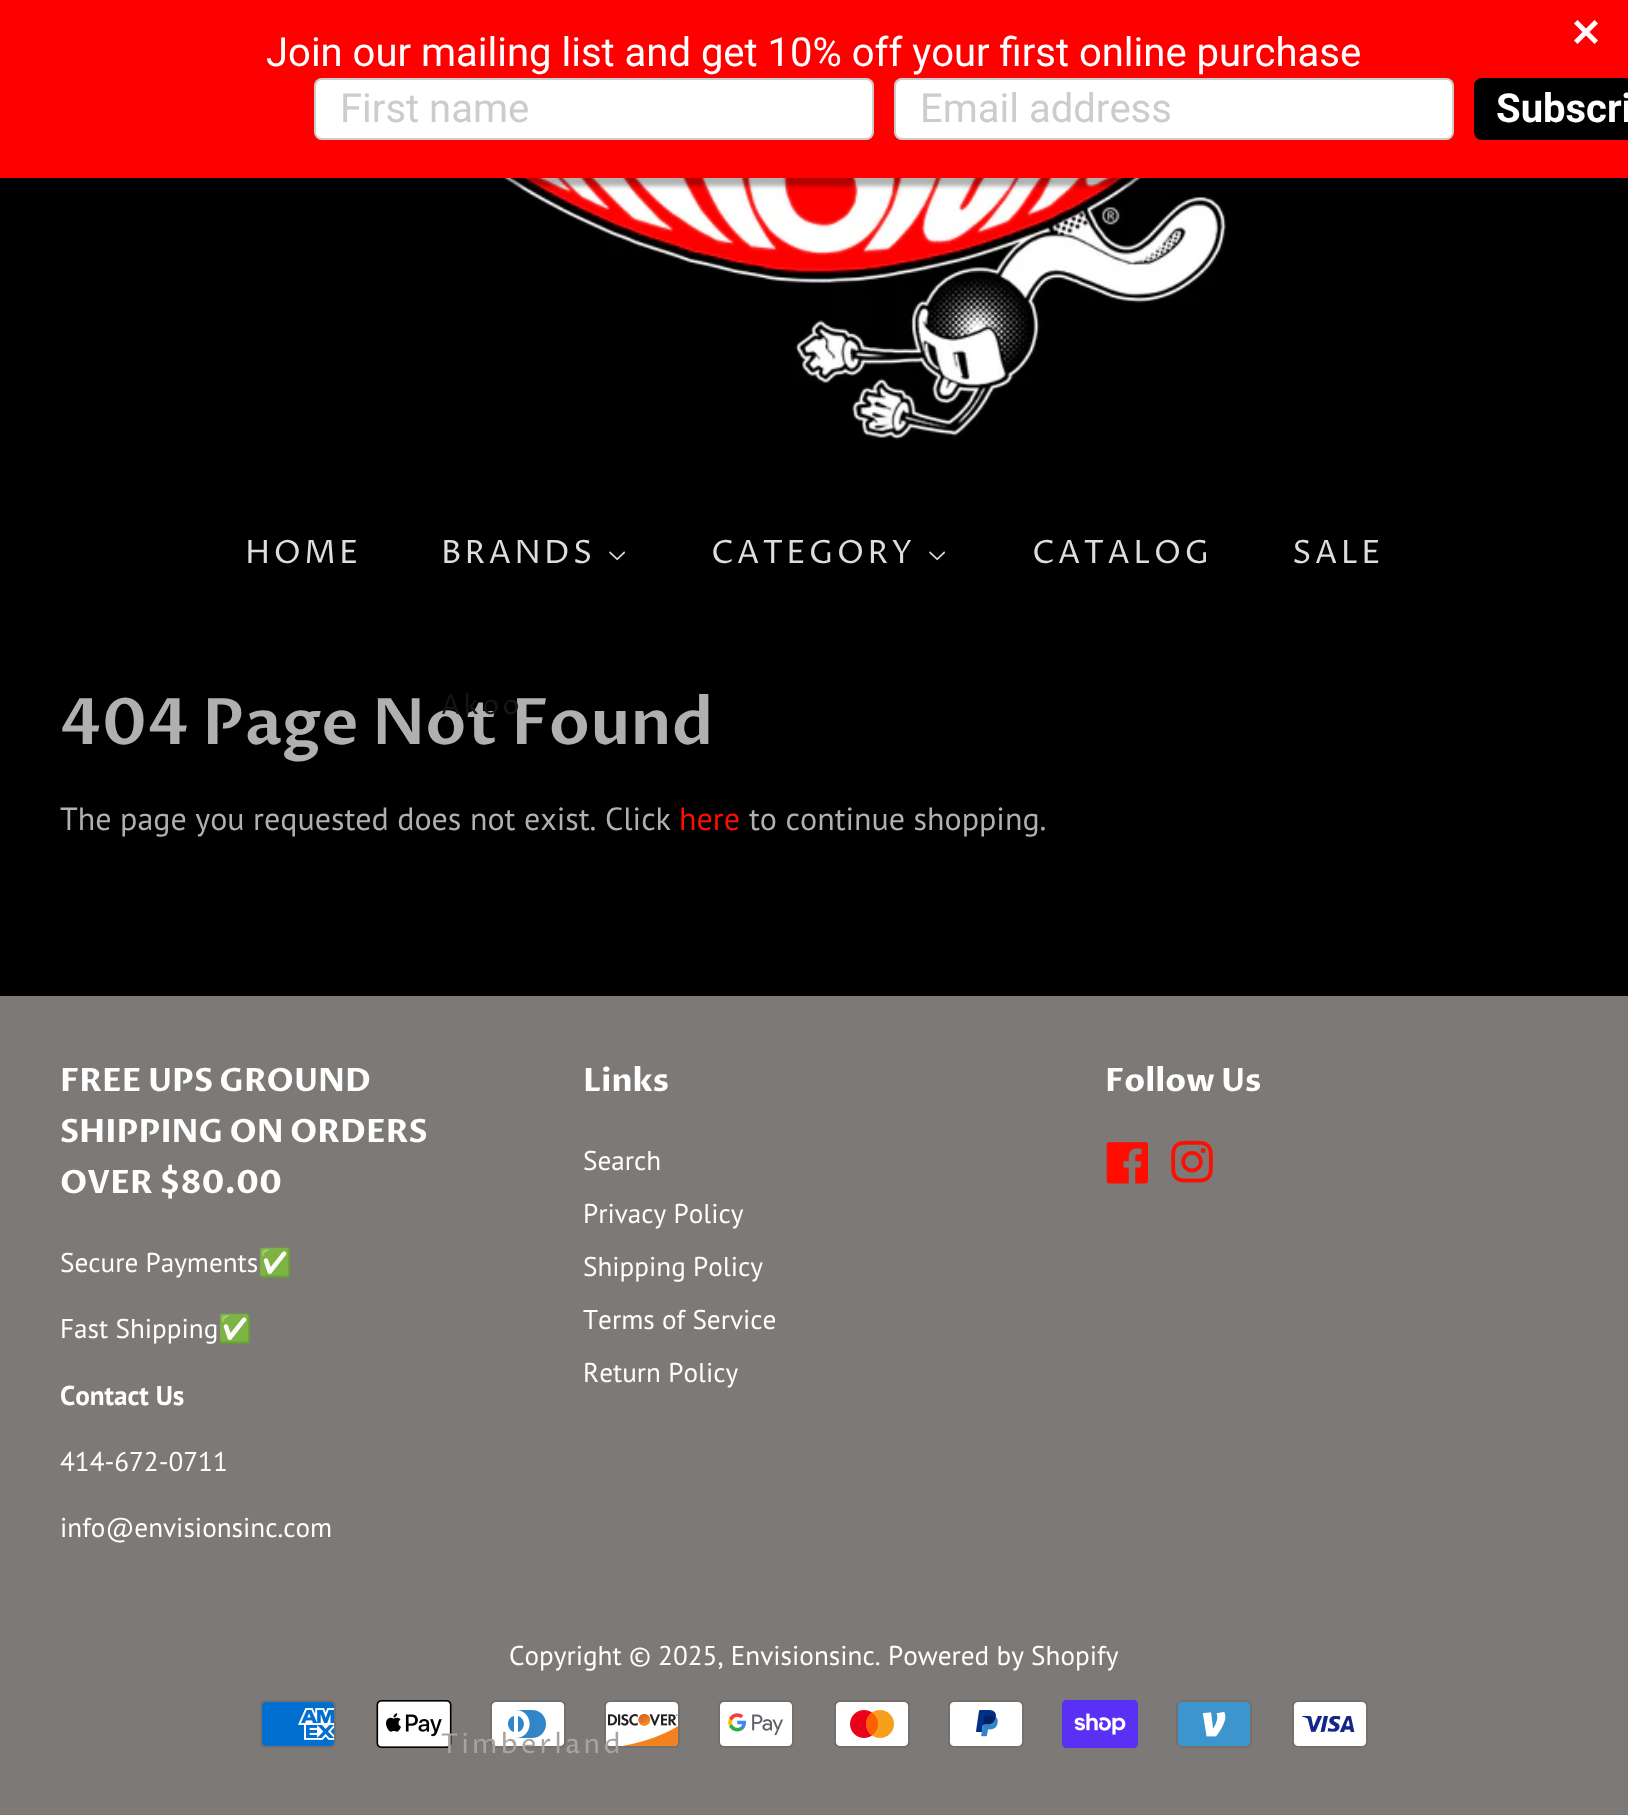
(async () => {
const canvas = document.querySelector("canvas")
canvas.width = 1628
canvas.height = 1815
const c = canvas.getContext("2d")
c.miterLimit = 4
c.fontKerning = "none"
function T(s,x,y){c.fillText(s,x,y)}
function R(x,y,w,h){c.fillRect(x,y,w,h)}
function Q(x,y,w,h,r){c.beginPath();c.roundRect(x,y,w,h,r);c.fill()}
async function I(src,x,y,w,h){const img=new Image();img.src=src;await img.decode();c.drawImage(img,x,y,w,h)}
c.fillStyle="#000"
R(0,0,1628,1815)
await I("2.png",418,178,808,262)
c.fillStyle="#0000004d"
c.filter="blur(2px)"
c.beginPath()
c.rect(-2,4,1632,182)
c.fill()
c.filter="none"
c.fillStyle="#f00"
R(0,0,1628,178)
await I("1.png",1574,20,24,24)
c.font="40px Roboto"
c.fillStyle="#fff"
T("Join our mailing list and get 10% off your first online purchase",266,66)
Q(314,78,560,62,8)
c.beginPath()
c.roundRect(315,79,558,60,7)
c.strokeStyle="#00000033"
c.lineWidth=2
c.stroke()
c.fillStyle="#ccc"
T("First name",340,122)
c.fillStyle="#fff"
Q(894,78,560,62,8)
c.beginPath()
c.roundRect(895,79,558,60,7)
c.stroke()
c.fillStyle="#ccc"
T("Email address",920,122)
c.fillStyle="#000"
c.beginPath()
c.roundRect(1474,78,154,62,[8,0,0,8])
c.fill()
c.beginPath()
c.roundRect(1475,79,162,60,7)
c.stroke()
c.font="bold 40px Roboto"
c.fillStyle="#fff"
T("Subscri",1496,122)
c.letterSpacing="3.25px"
c.font="32px Proza Libre"
c.fillStyle="#ddd"
T("HOME",245,563)
T("BRANDS",441,563)
await I("3.png",609,551,16,10)
c.letterSpacing="0px"
c.font="600 64px Proza Libre"
c.fillStyle="#b1afaf"
T("404 Page Not Found",60,744)
c.letterSpacing="3.25px"
c.font="27.2px Proza Libre"
c.fillStyle="#171616"
T("Akoo",441,714)
c.fillStyle="#7c7976"
R(0,996,1628,819)
await I("7.png",376,1700,76,48)
await I("8.png",490,1700,76,48)
await I("9.png",604,1700,76,48)
c.fillStyle="#a7a5a3"
T("Timberland",441,1753)
c.font="32px Proza Libre"
c.fillStyle="#ddd"
T("CATEGORY",711,563)
await I("3.png",929,551,16,10)
T("CATALOG",1032,563)
T("SALE",1292,563)
c.letterSpacing="0px"
c.font="32px PT Sans"
c.fillStyle="#b1afaf"
T("The page you requested does not exist. Click",60,830)
c.fillStyle="#ff0d00"
T("here",679,830)
c.fillStyle="#b1afaf"
T("to continue shopping.",749,830)
c.font="bold 32px Proza Libre"
c.fillStyle="#fff"
T("FREE UPS GROUND",60,1091)
T("SHIPPING ON ORDERS",60,1142)
T("OVER $80.00",60,1193)
c.font="27.2px PT Sans"
T("Secure Payments",60,1272)
c.font="27.2px Noto Color Emoji"
T("✅",258,1272)
c.font="27.2px PT Sans"
T("Fast Shipping",60,1338)
c.font="27.2px Noto Color Emoji"
T("✅",218,1338)
c.font="bold 27.2px PT Sans"
T("Contact Us",60,1405)
c.font="27.2px PT Sans"
T("414-672-0711",60,1471)
T("info@envisionsinc.com",60,1537)
c.font="bold 32px Proza Libre"
T("Links",583,1091)
c.font="27.2px PT Sans"
T("Search",583,1170)
T("Privacy Policy",583,1223)
T("Shipping Policy",583,1276)
T("Terms of Service",583,1329)
T("Return Policy",583,1382)
c.font="bold 32px Proza Libre"
T("Follow Us",1105,1091)
await I("4.png",1106,1142,42,42)
await I("5.png",1171,1140,42,43)
c.font="27.2px PT Sans"
T("Copyright © 2025, Envisionsinc.",509,1665)
T("Powered by Shopify",888,1665)
await I("6.png",260,1700,76,48)
await I("10.png",718,1700,76,48)
await I("11.png",834,1700,76,48)
await I("12.png",948,1700,76,48)
await I("13.png",1062,1700,76,48)
await I("14.png",1176,1700,76,48)
await I("15.png",1292,1700,76,48)
})()
